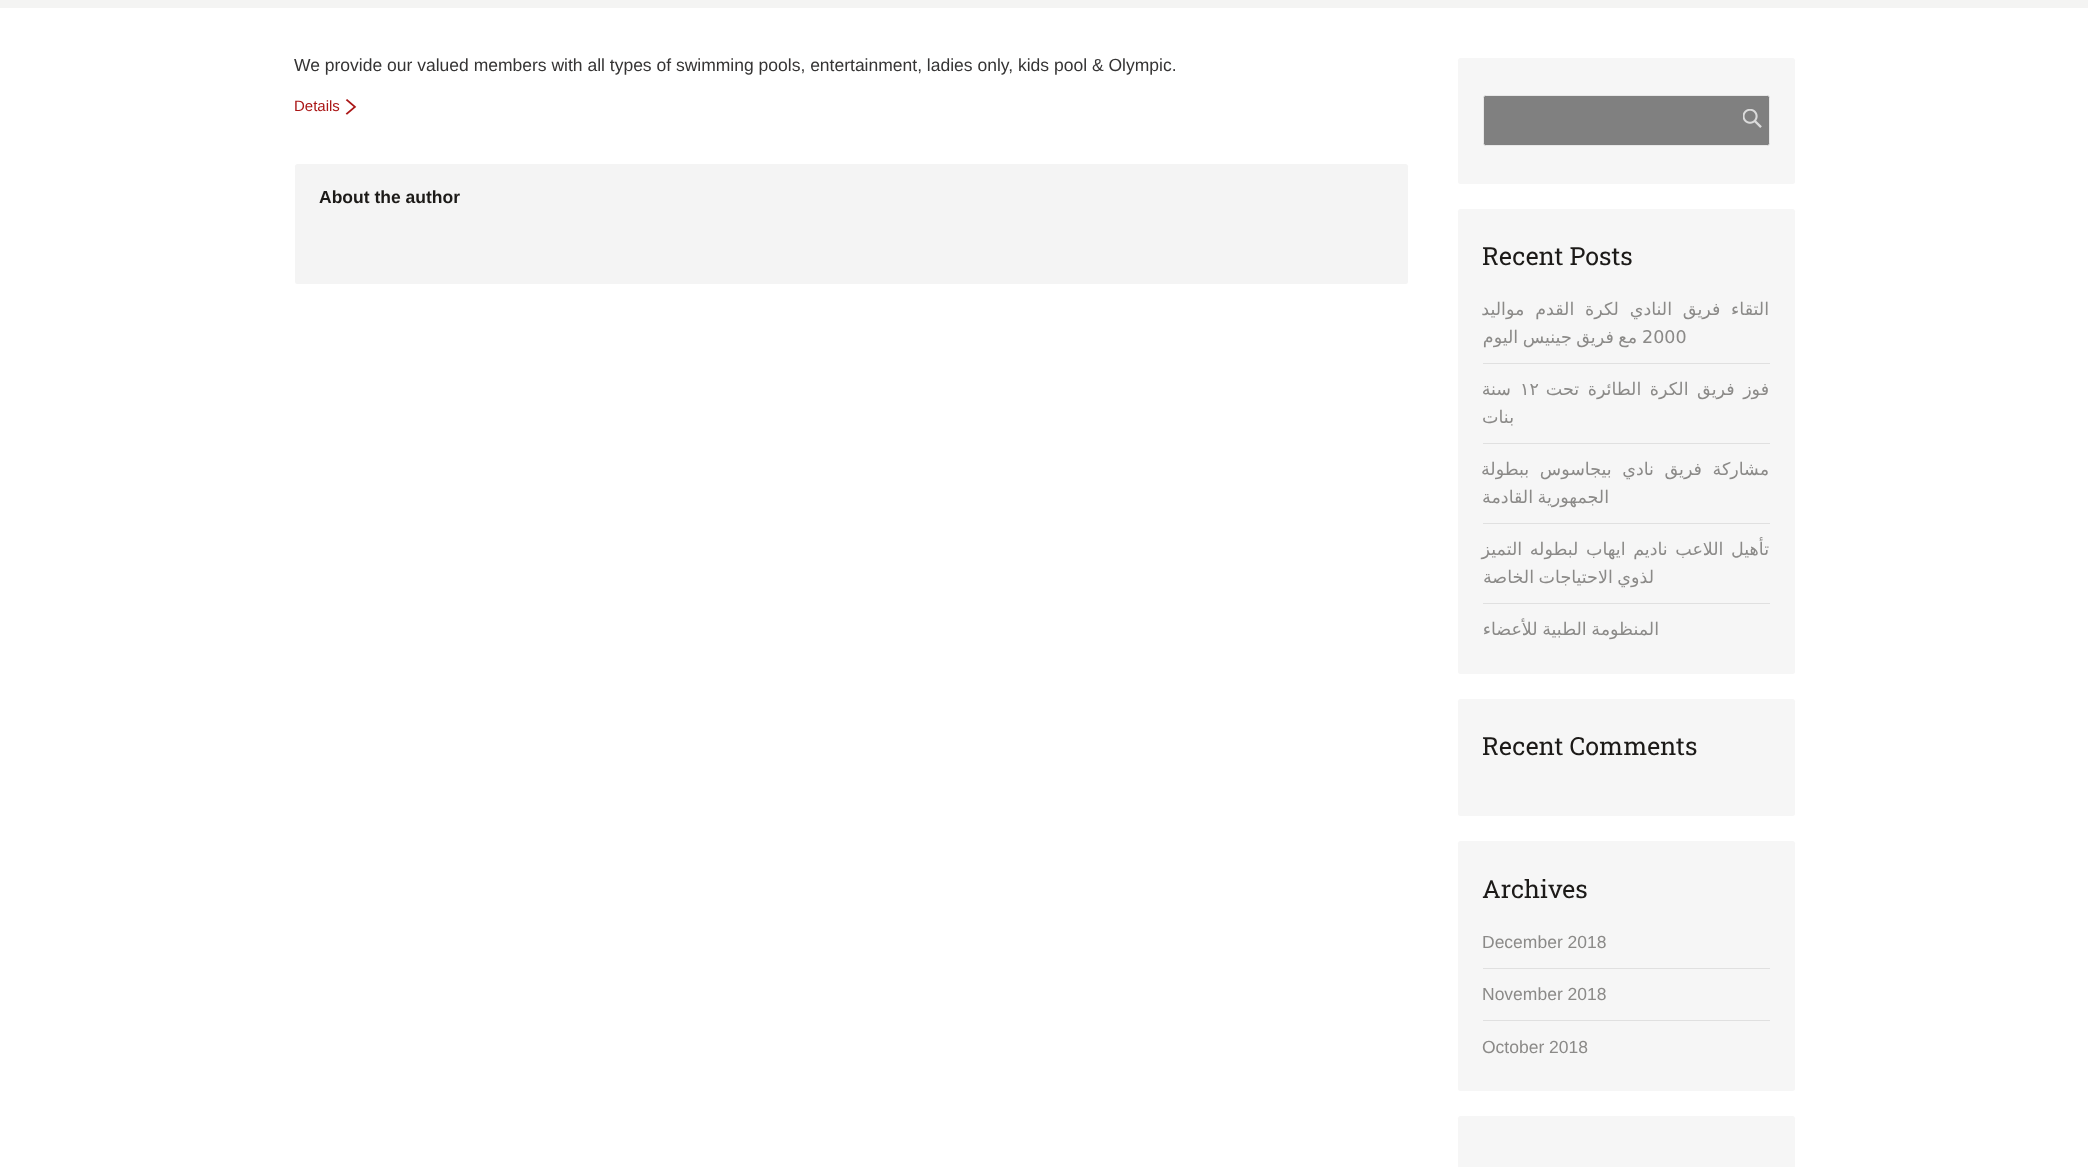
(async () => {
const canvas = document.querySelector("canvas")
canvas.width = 2088
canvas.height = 1167
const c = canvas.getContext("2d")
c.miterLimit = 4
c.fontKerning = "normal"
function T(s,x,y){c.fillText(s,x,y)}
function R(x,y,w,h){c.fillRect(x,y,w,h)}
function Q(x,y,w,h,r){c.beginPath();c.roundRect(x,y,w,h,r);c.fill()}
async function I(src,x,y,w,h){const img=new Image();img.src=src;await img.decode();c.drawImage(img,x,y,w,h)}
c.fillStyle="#fff"
R(0,0,2088,1167)
c.fillStyle="#f4f4f3"
R(0,0,2088,8)
c.font="17.5px Liberation Sans"
c.fillStyle="#353434"
T("We provide our valued members with all types of swimming pools, entertainment, ladies only, kids pool & Olympic.",294,71)
await I("1.png",345,99,12,16)
c.font="15px Liberation Sans"
c.fillStyle="#aa1515"
T("Details",294,111)
c.fillStyle="#f4f4f4"
Q(295,164,1113,120,2.5)
c.font="bold 17.5px Liberation Sans"
c.fillStyle="#1c1a18"
T("About the author",319,203)
c.fillStyle="#f6f6f6"
Q(1458,58,337,126,2.5)
c.fillStyle="#808080"
c.beginPath()
c.roundRect(1483.5,95.5,286,50,2)
c.fill()
c.strokeStyle="#e8e8e8"
c.stroke()
await I("2.png",1743,109,19,19)
c.fillStyle="#f6f6f6"
Q(1458,209,337,465,2.5)
c.font="25px Roboto Slab"
c.fillStyle="#1c1a18"
T("Recent Posts",1482,265)
c.wordSpacing="5.25px"
c.direction="rtl"
c.font="17.5px DejaVu Sans"
c.fillStyle="#8b8a88"
T("التقاء فريق النادي لكرة القدم مواليد",1769,315)
c.wordSpacing="0px"
c.direction="ltr"
T("2000",1642,343)
c.wordSpacing="-1px"
c.direction="rtl"
T("مع فريق جينيس اليوم",1637,343)
c.fillStyle="#e0e0e0"
R(1483,363,287,1)
c.wordSpacing="3px"
c.fillStyle="#8b8a88"
T("فوز فريق الكرة الطائرة تحت",1769,395)
c.wordSpacing="0px"
c.direction="ltr"
T("١٢",1520,395)
c.direction="rtl"
T("سنة",1511,395)
T("بنات",1514,423)
c.fillStyle="#e0e0e0"
R(1483,443,287,1)
c.wordSpacing="5px"
c.fillStyle="#8b8a88"
T("مشاركة فريق نادي بيجاسوس ببطولة",1769,475)
c.wordSpacing="-1px"
T("الجمهورية القادمة",1609,503)
c.fillStyle="#e0e0e0"
R(1483,523,287,1)
c.wordSpacing="2px"
c.fillStyle="#8b8a88"
T("تأهيل اللاعب ناديم ايهاب لبطوله التميز",1769,555)
c.wordSpacing="-1px"
T("لذوي الاحتياجات الخاصة",1654,583)
c.fillStyle="#e0e0e0"
R(1483,603,287,1)
c.fillStyle="#8b8a88"
T("المنظومة الطبية للأعضاء",1659,635)
c.fillStyle="#f6f6f6"
Q(1458,699,337,117,2.5)
c.wordSpacing="0px"
c.direction="ltr"
c.font="25px Roboto Slab"
c.fillStyle="#1c1a18"
T("Recent Comments",1482,755)
c.fillStyle="#f6f6f6"
Q(1458,841,337,250,2.5)
c.fillStyle="#1c1a18"
T("Archives",1482,898)
c.font="17.5px Liberation Sans"
c.fillStyle="#8b8a88"
T("December 2018",1482,948)
c.fillStyle="#e0e0e0"
R(1483,968,287,1)
c.fillStyle="#8b8a88"
T("November 2018",1482,1000)
c.fillStyle="#e0e0e0"
R(1483,1020,287,1)
c.fillStyle="#8b8a88"
T("October 2018",1482,1053)
c.fillStyle="#f6f6f6"
Q(1458,1116,337,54,2.5)
})()
